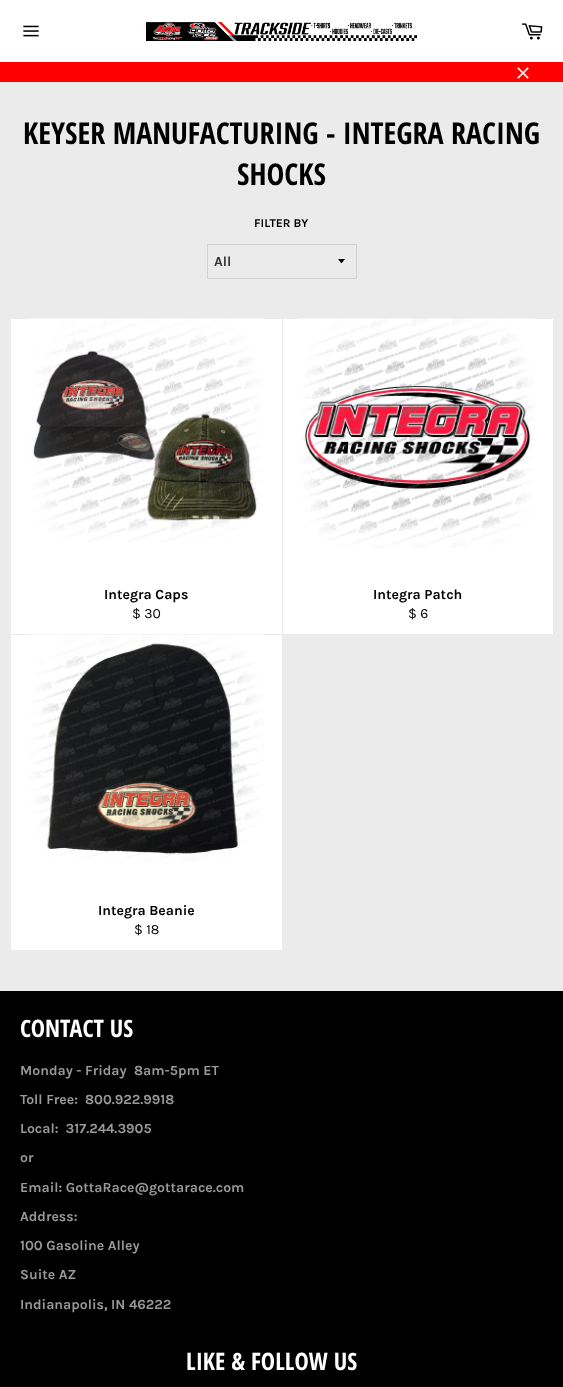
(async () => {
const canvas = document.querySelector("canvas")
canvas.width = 563
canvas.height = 1387
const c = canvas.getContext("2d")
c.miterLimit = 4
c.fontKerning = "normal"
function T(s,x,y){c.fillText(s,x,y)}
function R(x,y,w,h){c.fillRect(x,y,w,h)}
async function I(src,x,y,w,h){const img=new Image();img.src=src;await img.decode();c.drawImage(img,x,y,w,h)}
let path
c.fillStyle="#ecebeb"
R(0,0,563,1387)
c.fillStyle="#fff"
R(0,0,563,62)
await I("1.png",23,25,16,12)
await I("2.png",146,22,271,19)
await I("3.png",521,23,22,17)
c.fillStyle="#f00"
R(0,62,563,20)
await I("4.png",517,67,12,12)
c.font="bold 30px Open Sans Condensed"
c.fillStyle="#000"
T("KEYSER MANUFACTURING - INTEGRA RACING",23,144)
T("SHOCKS",237,185)
c.font="bold 12px Karla"
T("FILTER BY",254,227)
path = new Path2D("M338 259c4.5 5.5 2.5 5.5 7 0z")
c.fill(path)
c.strokeStyle="#d3d1d1"
c.strokeRect(207.5,244.5,149,34)
c.font="bold 14px Karla"
c.fillStyle="#333"
T("All",214,266)
c.fillStyle="#fff"
R(11,319,271,315)
await I("5.png",29,318,235,224)
c.fillStyle="#000"
T("Integra Caps",104,599)
c.font="14px Karla"
T("$ 30",132,618)
c.fillStyle="#fff"
R(283,319,270,315)
await I("6.png",300,318,235,230)
c.font="bold 14px Karla"
c.fillStyle="#000"
T("Integra Patch",373,599)
c.font="14px Karla"
T("$ 6",408,618)
c.fillStyle="#fff"
R(11,635,271,315)
await I("7.png",29,634,235,228)
c.font="bold 14px Karla"
c.fillStyle="#000"
T("Integra Beanie",98,915)
c.font="14px Karla"
T("$ 18",134,934)
R(0,991,563,396)
c.font="bold 24px Open Sans Condensed"
c.fillStyle="#fff"
T("CONTACT US",20,1037)
c.font="bold 14px Karla"
c.fillStyle="#999"
T("Monday - Friday",20,1075)
T("8am-5pm ET",134,1075)
T("Toll Free:  800.922.9918",20,1104)
T("Local:  317.244.3905",20,1133)
T("or",20,1162)
T("Email: GottaRace@gottarace.com",20,1192)
T("Address:",20,1221)
T("100 Gasoline Alley",20,1250)
T("Suite AZ",20,1279)
T("Indianapolis, IN 46222",20,1309)
c.font="bold 24px Open Sans Condensed"
c.fillStyle="#fff"
T("LIKE & FOLLOW US",186,1370)
})()
